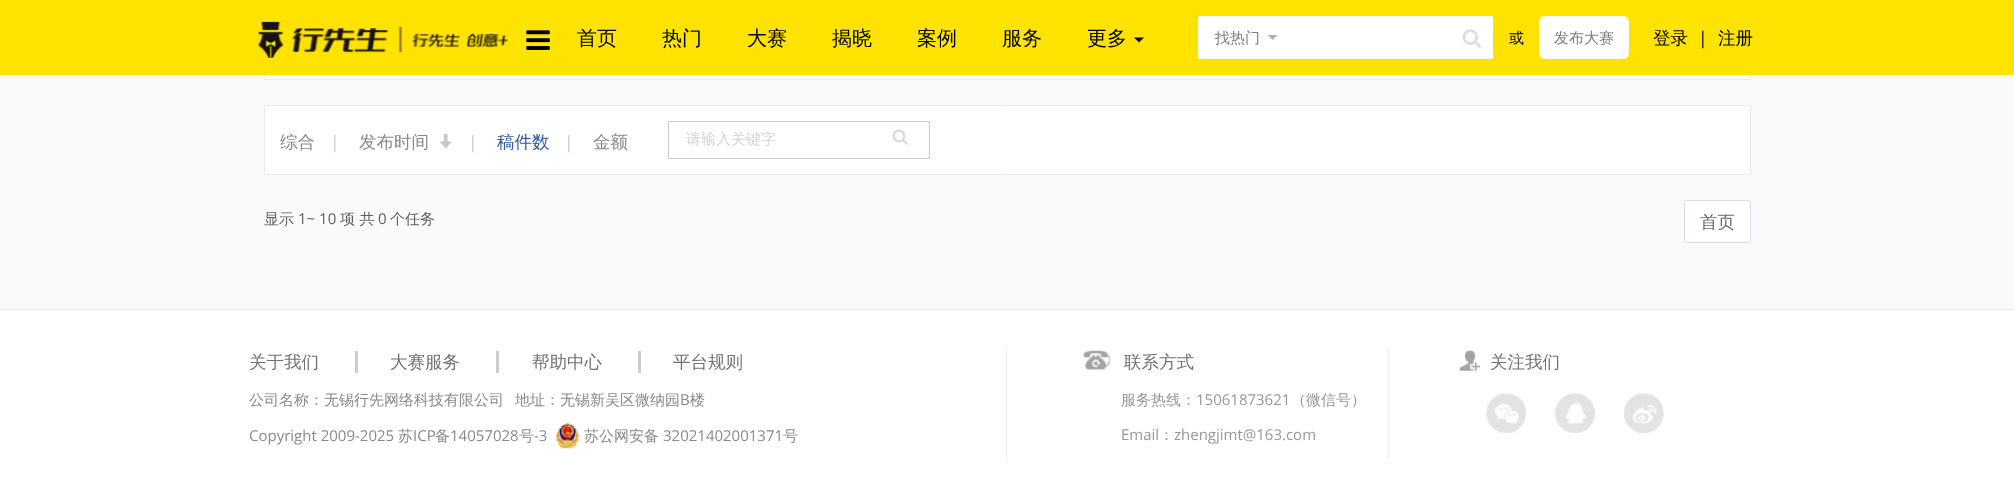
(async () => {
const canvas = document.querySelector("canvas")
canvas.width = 2014
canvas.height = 501
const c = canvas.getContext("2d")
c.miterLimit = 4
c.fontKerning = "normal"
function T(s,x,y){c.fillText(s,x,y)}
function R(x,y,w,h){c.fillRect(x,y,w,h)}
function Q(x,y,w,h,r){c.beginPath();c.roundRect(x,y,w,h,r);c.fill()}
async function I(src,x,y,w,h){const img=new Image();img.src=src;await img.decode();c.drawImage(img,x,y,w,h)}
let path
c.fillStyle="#fafafa"
R(0,0,2014,501)
c.fillStyle="#fff"
R(265,75,1485,4)
c.strokeStyle="#eaeaea"
c.strokeRect(264.5,-.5,1486,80)
c.fillStyle="#ffe300"
R(0,0,2014,75)
await I("1.png",258,21,250,37)
await I("2.png",526,30,24,20)
c.font="500 20px WenQuanYi Zen Hei"
c.fillStyle="#000"
T("首页",577,45)
T("热门",662,45)
T("大赛",747,45)
T("揭晓",832,45)
T("案例",917,45)
T("服务",1002,45)
T("更多",1087,45)
path = new Path2D("M1134 37.5h10l-5 5z")
c.fill(path)
c.fillStyle="#fff"
c.beginPath()
c.roundRect(1278,16,215,43,[0,2.5,2.5,0])
c.fill()
c.beginPath()
c.roundRect(1198,16,80,43,[2.5,0,0,2.5])
c.fill()
c.font="500 15px WenQuanYi Zen Hei"
c.fillStyle="#7d7d7d"
T("找热门",1215,43)
c.fillStyle="#b3b3b3"
path = new Path2D("M1267.5 35h10l-5 5z")
c.fill(path)
c.fillStyle="#fff"
Q(1450,16,43,43,2.5)
await I("3.png",1462,29,19,19)
c.fillStyle="#000"
T("或",1509,43)
c.fillStyle="#fff"
c.beginPath()
c.roundRect(1542,19,84,37,3)
c.fill()
c.strokeStyle="#fff"
c.lineWidth=6
c.stroke()
c.fillStyle="#7d7d7d"
T("发布大赛",1554,43)
c.font="500 17.5px WenQuanYi Zen Hei"
c.fillStyle="#000"
T("登录",1653,44)
c.font="17.5px Open Sans"
T("|",1698,44)
c.font="500 17.5px WenQuanYi Zen Hei"
T("注册",1718,44)
c.fillStyle="#fff"
c.beginPath()
c.rect(264.5,105.5,1486,69)
c.fill()
c.strokeStyle="#eaeaea"
c.lineWidth=1
c.stroke()
c.fillStyle="#898989"
T("综合",280,148)
c.font="17.5px Open Sans"
c.fillStyle="#ccc"
T("|",330,148)
c.font="500 17.5px WenQuanYi Zen Hei"
c.fillStyle="#898989"
T("发布时间",359,148)
await I("4.png",440,133,12,16)
c.font="17.5px Open Sans"
c.fillStyle="#ccc"
T("|",468,148)
c.font="500 17.5px WenQuanYi Zen Hei"
c.fillStyle="#2f55a0"
T("稿件数",497,148)
c.font="17.5px Open Sans"
c.fillStyle="#ccc"
T("|",564,148)
c.font="500 17.5px WenQuanYi Zen Hei"
c.fillStyle="#898989"
T("金额",593,148)
c.strokeStyle="#ccc"
c.strokeRect(668.5,121.5,261,37)
c.font="500 15px WenQuanYi Zen Hei"
c.fillStyle="#d3d3d3"
T("请输入关键字",686,144)
await I("5.png",892,129,16,16)
c.fillStyle="#606060"
T("显示",264,224)
c.font="15px Open Sans"
T("1~ 10",298,224)
c.font="500 15px WenQuanYi Zen Hei"
T("项 共",340,224)
c.font="15px Open Sans"
T("0",378,224)
c.font="500 15px WenQuanYi Zen Hei"
T("个任务",390,224)
c.fillStyle="#fff"
c.beginPath()
c.roundRect(1684.5,200.5,66,42,2)
c.fill()
c.strokeStyle="#d4dfe3"
c.stroke()
c.font="500 17.5px WenQuanYi Zen Hei"
c.fillStyle="#686868"
T("首页",1700,228)
c.fillStyle="#fff"
R(0,310,2014,191)
c.fillStyle="#e7e7e7"
R(0,309,2014,1)
c.fillStyle="#ededed"
R(1006,348,1,113)
c.fillStyle="#717171"
T("关于我们",249,368)
c.fillStyle="#ccc"
R(355,351,3,22)
c.fillStyle="#717171"
T("大赛服务",390,368)
c.fillStyle="#ccc"
R(496,351,3,22)
c.fillStyle="#717171"
T("帮助中心",532,368)
c.fillStyle="#ccc"
R(638,351,3,22)
c.fillStyle="#717171"
T("平台规则",673,368)
c.font="500 15px WenQuanYi Zen Hei"
c.fillStyle="#898989"
T("公司名称：无锡行先网络科技有限公司",249,405)
T("地址：无锡新吴区微纳园",515,405)
c.font="15px Open Sans"
T("B",680,405)
c.font="500 15px WenQuanYi Zen Hei"
T("楼",690,405)
c.font="15px Open Sans"
T("Copyright 2009-2025",249,441)
c.font="500 15px WenQuanYi Zen Hei"
T("苏",398,441)
c.font="15px Open Sans"
T("ICP",413,441)
c.font="500 15px WenQuanYi Zen Hei"
T("备",435,441)
c.font="15px Open Sans"
T("14057028",450,441)
c.font="500 15px WenQuanYi Zen Hei"
T("号",519,441)
c.font="15px Open Sans"
T("-3",534,441)
await I("6.png",556,423,23,26)
c.font="500 15px WenQuanYi Zen Hei"
T("苏公网安备",584,441)
c.font="15px Open Sans"
T("32021402001371",663,441)
c.font="500 15px WenQuanYi Zen Hei"
T("号",783,441)
c.fillStyle="#ededed"
R(1388,348,1,111)
await I("7.png",1083,350,27,20)
c.font="500 17.5px WenQuanYi Zen Hei"
c.fillStyle="#717171"
T("联系方式",1124,368)
c.font="500 15px WenQuanYi Zen Hei"
c.fillStyle="#979797"
T("服务热线：",1121,405)
c.font="15px Open Sans"
T("15061873621",1196,405)
c.font="500 15px WenQuanYi Zen Hei"
T("（微信号）",1291,405)
c.font="15px Open Sans"
T("Email",1121,440)
c.font="500 15px WenQuanYi Zen Hei"
T("：",1159,440)
c.font="15px Open Sans"
T("zhengjimt@163.com",1174,440)
await I("8.png",1460,350,20,21)
c.font="500 17.5px WenQuanYi Zen Hei"
c.fillStyle="#717171"
T("关注我们",1490,368)
await I("9.png",1486,393,40,40)
await I("10.png",1555,393,40,40)
await I("11.png",1624,393,40,40)
})()
